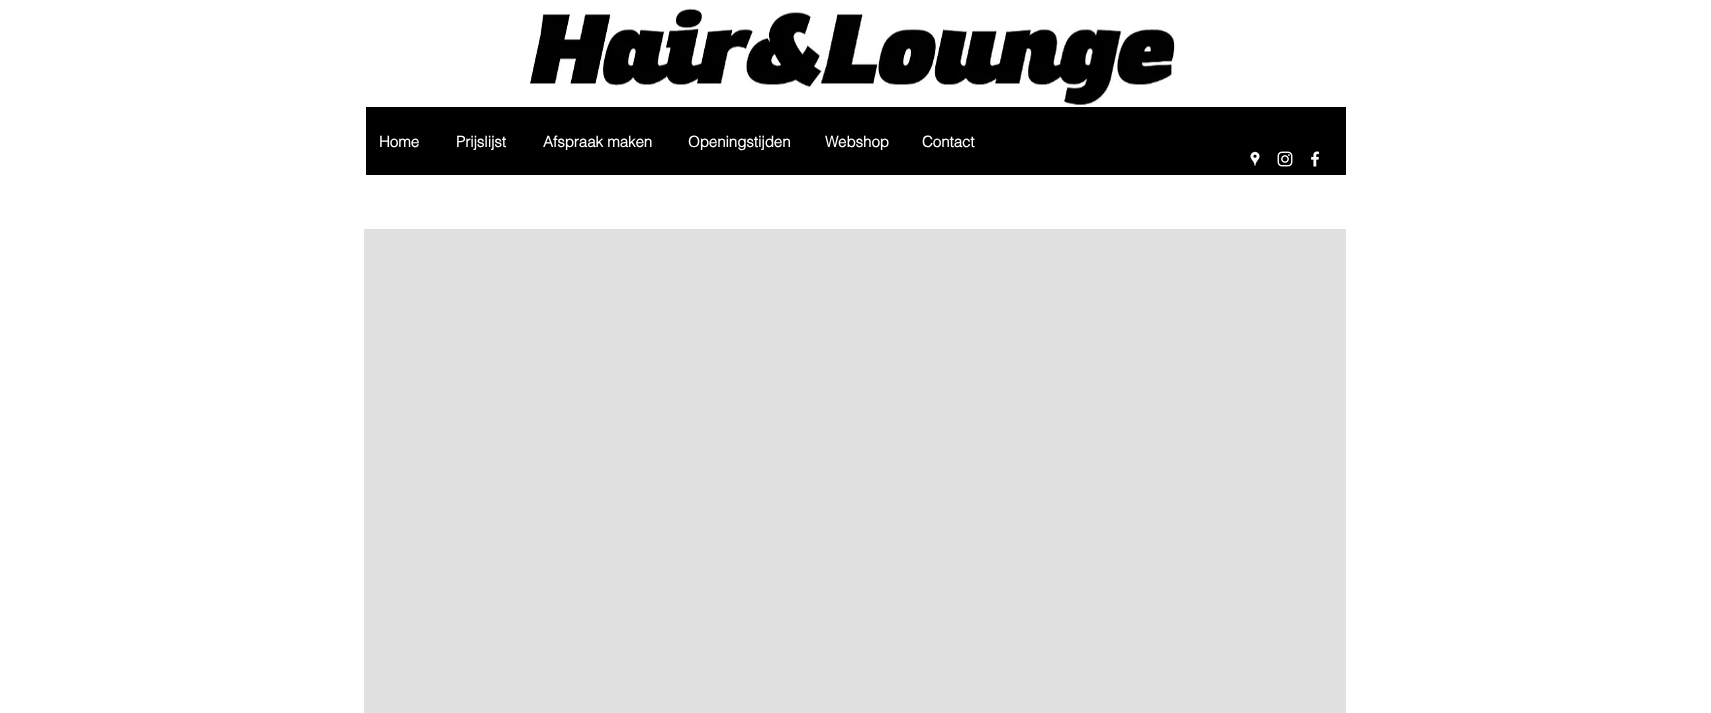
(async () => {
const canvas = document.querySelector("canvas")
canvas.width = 1711
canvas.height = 713
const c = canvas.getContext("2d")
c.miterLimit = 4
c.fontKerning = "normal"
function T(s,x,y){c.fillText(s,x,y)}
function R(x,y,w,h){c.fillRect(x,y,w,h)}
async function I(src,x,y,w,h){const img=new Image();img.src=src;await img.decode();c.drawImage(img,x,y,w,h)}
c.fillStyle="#fff"
R(0,0,1711,713)
await I("1.png",530,7,647,99)
c.fillStyle="#000"
R(366,107,980,68)
c.font="bold 15px helvetica"
c.fillStyle="#fff"
T("Home",379,147)
T("Prijslijst",456,147)
T("Afspraak maken",543,147)
T("Openingstijden",688,147)
T("Webshop",825,147)
T("Contact",922,147)
await I("2.png",1250,151,10,15)
await I("3.png",1277,151,16,16)
await I("4.png",1311,151,9,16)
c.fillStyle="#e1e1e1"
R(364,229,982,484)
})()
